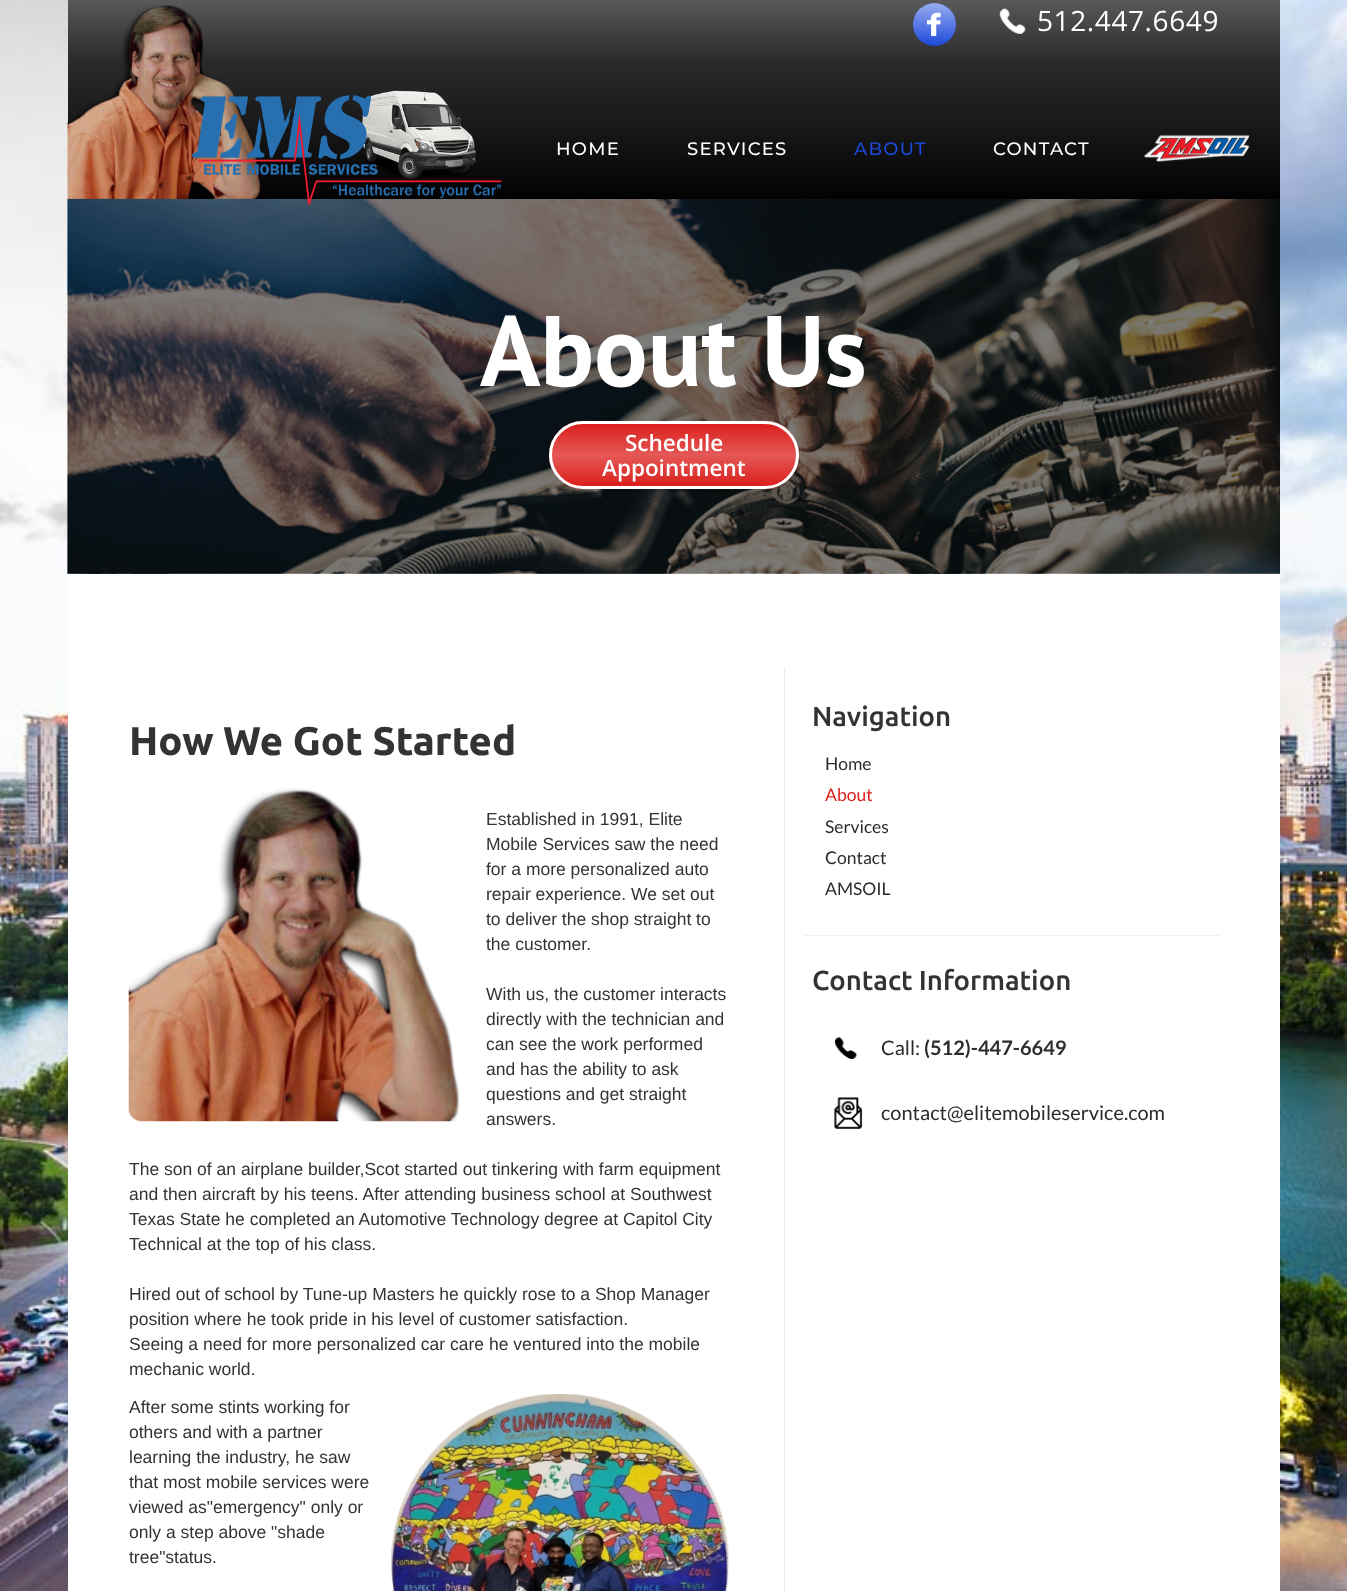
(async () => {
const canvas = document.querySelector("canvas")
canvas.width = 1347
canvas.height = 1591
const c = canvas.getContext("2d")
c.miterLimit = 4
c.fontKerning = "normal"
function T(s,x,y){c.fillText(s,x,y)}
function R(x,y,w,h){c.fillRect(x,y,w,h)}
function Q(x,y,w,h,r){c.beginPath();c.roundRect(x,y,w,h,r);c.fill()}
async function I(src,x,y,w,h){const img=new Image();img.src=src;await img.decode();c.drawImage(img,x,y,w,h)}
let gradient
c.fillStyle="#fff"
R(0,0,1347,1591)
await I("1.png",0,0,1347,1591)
gradient = c.createLinearGradient(674,-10,674,59)
gradient.addColorStop(0,"#616161")
gradient.addColorStop(1,"#2c2c2c")
c.fillStyle = gradient
R(68,0,1212,59)
c.fillStyle="#1d49db"
c.beginPath()
c.arc(934.5,24.5,21.5,0,7)
c.fill()
gradient = c.createLinearGradient(934,2.5,934,46)
gradient.addColorStop(0,"#ffffff8c")
gradient.addColorStop(1,"#ffffff00")
c.fillStyle = gradient
c.beginPath()
c.arc(934.5,24.5,21.5,0,7)
c.fill()
await I("2.png",926,12,15,24)
await I("3.png",999,8,27,26)
c.letterSpacing="0.6px"
c.font="28px Open Sans"
c.fillStyle="#fff"
T("512.447.6649",1037,31)
await I("7.png",67,198,1213,376)
gradient = c.createLinearGradient(674,59,674,199)
gradient.addColorStop(0,"#2c2c2c")
gradient.addColorStop(1,"#020202")
c.fillStyle = gradient
R(68,59,1212,140)
await I("4.png",67,5,194,194)
await I("5.png",192,86,310,119)
c.letterSpacing="1.25px"
c.font="500 18px Montserrat"
c.fillStyle="#fff"
T("HOME",556,155)
T("SERVICES",687,155)
c.fillStyle="#1d49db"
T("ABOUT",854,155)
c.fillStyle="#fff"
T("CONTACT",993,155)
await I("6.png",1144,134,106,29)
c.letterSpacing="0px"
c.font="bold 100px PT Sans"
T("About Us",480,386)
c.fillStyle="#db201d"
Q(549,421,250,68,34)
c.save()
c.beginPath()
c.roundRect(549,421,250,68,34)
c.clip()
gradient = c.createLinearGradient(674,424,674,486)
gradient.addColorStop(0,"#ffffff00")
gradient.addColorStop(.5,"#ffffff40")
gradient.addColorStop(1,"#ffffff00")
c.fillStyle = gradient
R(549,427,250,56)
c.restore()
c.beginPath()
c.roundRect(550.5,422.5,247,65,32.5)
c.strokeStyle="#fff"
c.lineWidth=3
c.stroke()
c.font="600 22.5px Open Sans"
c.fillStyle="#fff"
T("Schedule",625,451)
T("Appointment",602,476)
R(68,574,1212,1017)
c.font="bold 40px Ubuntu"
c.fillStyle="#333"
T("How We Got Started",129,755)
await I("8.png",128,788,332,334)
c.font="17.5px Liberation Sans"
T("Established in 1991, Elite",486,825)
T("Mobile Services saw the need",486,850)
T("for a more personalized auto",486,875)
T("repair experience. We set out",486,900)
T("to deliver the shop straight to",486,925)
T("the customer.",486,950)
T("With us, the customer interacts",486,1000)
T("directly with the technician and",486,1025)
T("can see the work performed",486,1050)
T("and has the ability to ask",486,1075)
T("questions and get straight",486,1100)
T("answers.",486,1125)
T("The son of an airplane builder,Scot started out tinkering with farm equipment",129,1175)
T("and then aircraft by his teens. After attending business school at Southwest",129,1200)
T("Texas State he completed an Automotive Technology degree at Capitol City",129,1225)
T("Technical at the top of his class.",129,1250)
T("Hired out of school by Tune-up Masters he quickly rose to a Shop Manager",129,1300)
T("position where he took pride in his level of customer satisfaction.",129,1325)
T("Seeing a need for more personalized car care he ventured into the mobile",129,1350)
T("mechanic world.",129,1375)
T("After some stints working for",129,1413)
T("others and with a partner",129,1438)
T("learning the industry, he saw",129,1463)
T("that most mobile services were",129,1488)
T("viewed as\"emergency\" only or",129,1513)
T("only a step above \"shade",129,1538)
T("tree\"status.",129,1563)
await I("9.png",391,1394,338,197)
c.fillStyle="#e7e9ee"
R(784,668,1,923)
c.font="500 27.5px Ubuntu"
c.fillStyle="#333"
T("Navigation",812,726)
c.font="17.5px Lato"
c.fillStyle="#2c2c2c"
T("Home",825,770)
c.fillStyle="#db201d"
T("About",825,801)
c.fillStyle="#2c2c2c"
T("Services",825,833)
T("Contact",825,864)
T("AMSOIL",825,895)
c.fillStyle="#f0f0f0"
R(804,935,416,1)
c.font="500 27.5px Ubuntu"
c.fillStyle="#333"
T("Contact Information",812,990)
await I("10.png",834,1037,23,22)
c.font="20px Lato"
c.fillStyle="#2c2c2c"
T("Call:",881,1055)
c.font="bold 20px Lato"
T("(512)-447-6649",924,1055)
await I("11.png",833,1097,30,32)
c.font="20px Lato"
T("contact@elitemobileservice.com",881,1120)
})()
